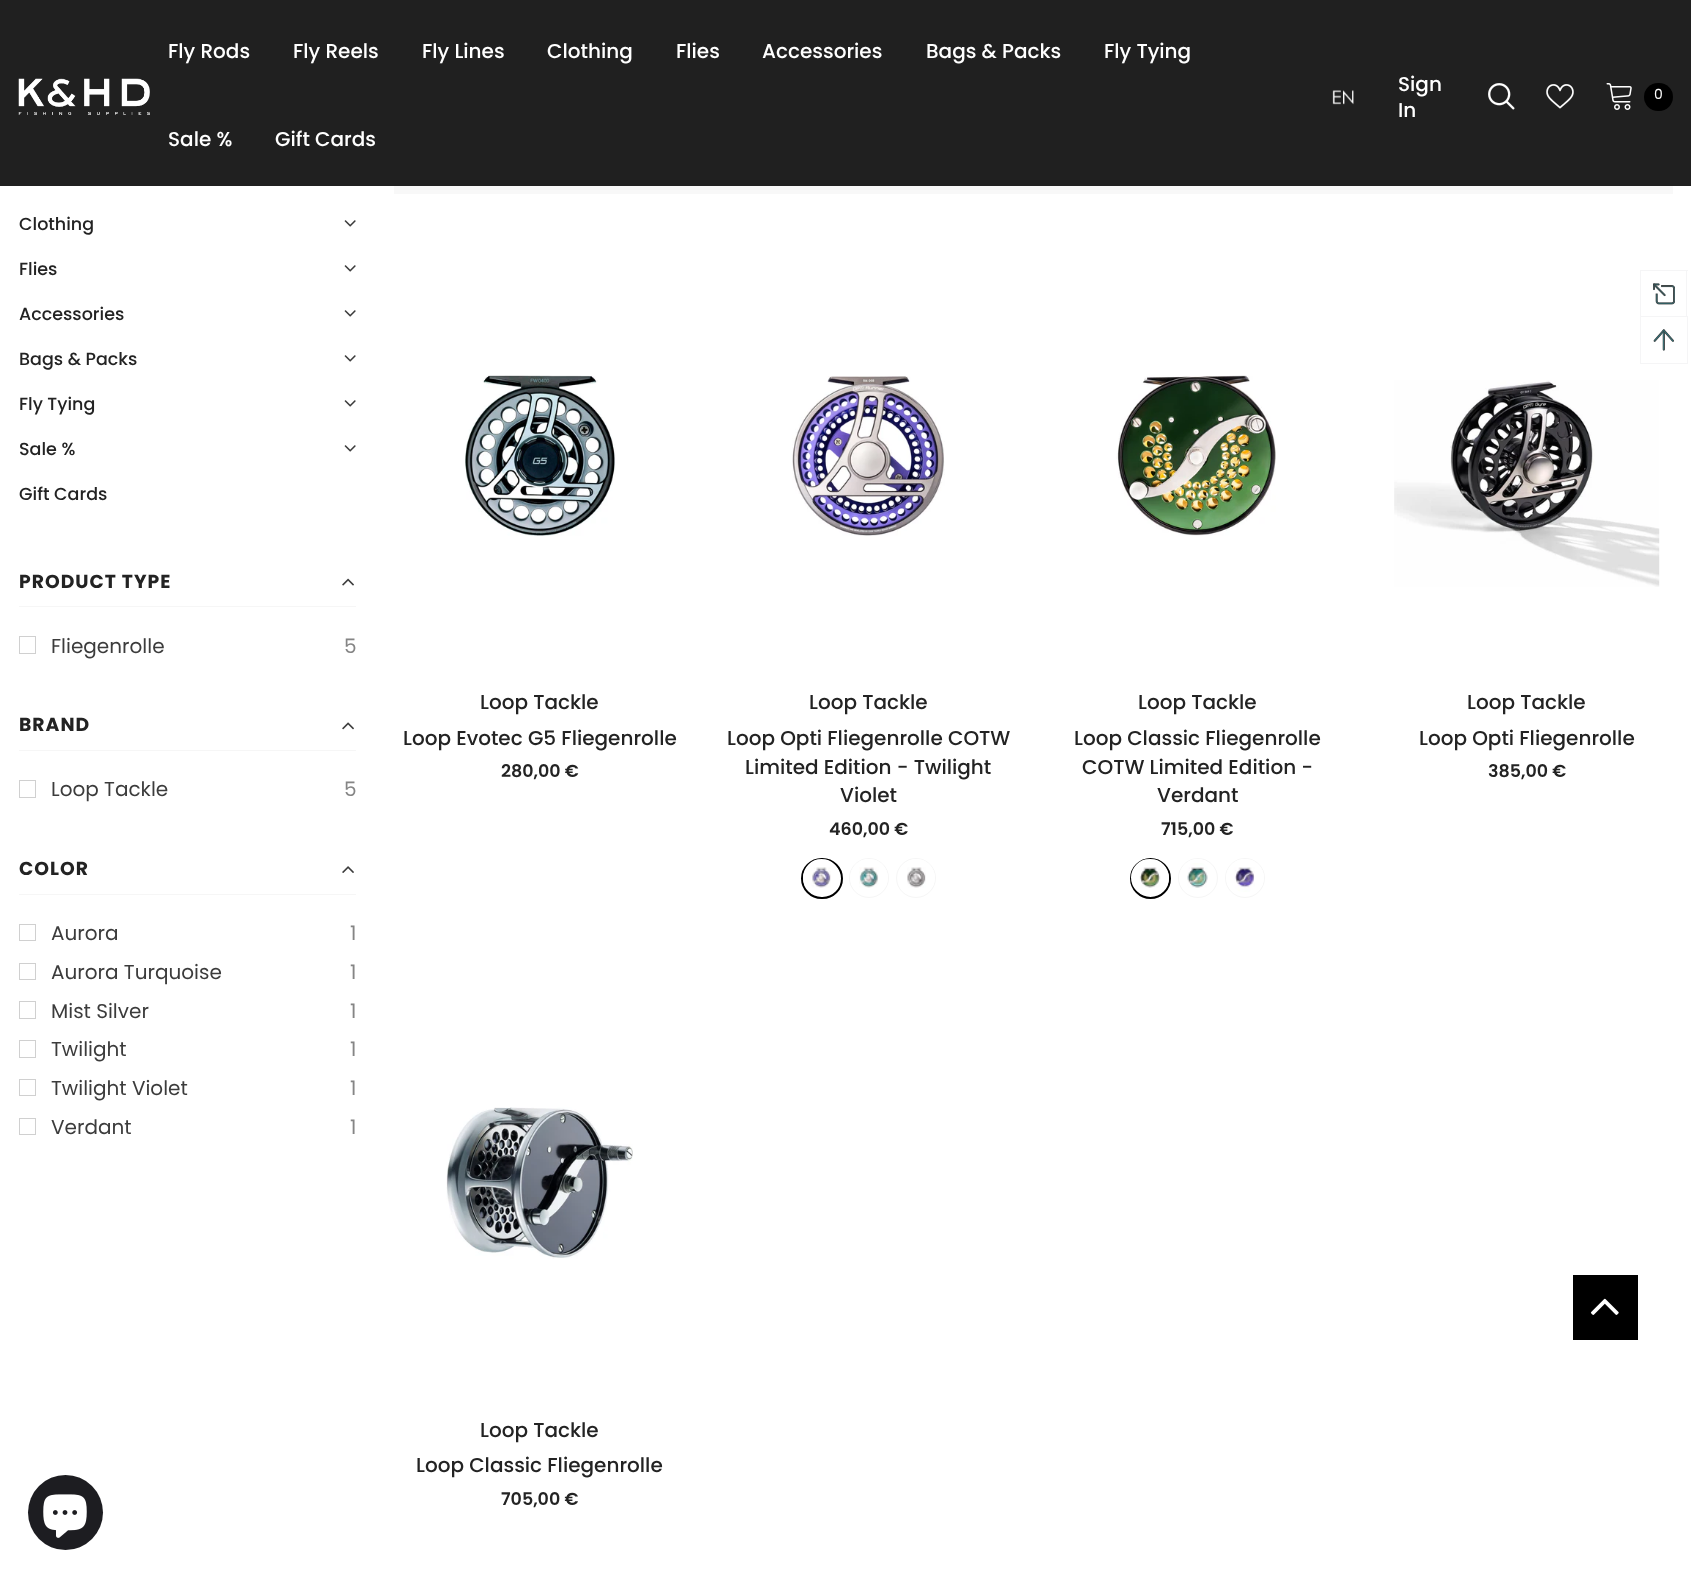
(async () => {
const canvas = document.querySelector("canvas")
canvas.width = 1691
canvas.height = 1576
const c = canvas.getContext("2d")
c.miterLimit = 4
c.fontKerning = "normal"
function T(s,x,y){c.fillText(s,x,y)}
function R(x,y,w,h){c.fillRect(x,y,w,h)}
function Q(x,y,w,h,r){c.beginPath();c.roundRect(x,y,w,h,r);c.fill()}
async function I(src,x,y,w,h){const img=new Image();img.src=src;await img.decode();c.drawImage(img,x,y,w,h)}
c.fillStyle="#fff"
R(0,0,1691,1576)
c.fillStyle="#202020"
R(0,0,1691,186)
await I("1.png",18,78,132,37)
c.font="500 20px Poppins"
c.fillStyle="#fff"
T("Fly Rods",168,58)
T("Fly Reels",293,58)
T("Fly Lines",422,58)
T("Clothing",547,58)
T("Flies",676,58)
T("Accessories",762,58)
T("Bags & Packs",926,58)
T("Fly Tying",1104,58)
T("Sale %",168,146)
T("Gift Cards",275,146)
await I("2.png",1332,90,22,15)
T("Sign",1398,91)
T("In",1398,117)
await I("3.png",1488,83,27,27)
await I("4.png",1546,84,28,25)
await I("5.png",1606,83,26,27)
c.fillStyle="#000"
Q(1644,83,29,28,14)
c.font="14px Poppins"
c.fillStyle="#fff"
T("0",1654,99)
c.font="500 17.5px Poppins"
c.fillStyle="#232323"
T("Clothing",19,230)
await I("6.png",344,220,12,7)
T("Flies",19,275)
await I("6.png",344,265,12,7)
T("Accessories",19,320)
await I("6.png",344,310,12,7)
T("Bags & Packs",19,365)
await I("6.png",344,355,12,7)
T("Fly Tying",19,410)
await I("6.png",344,400,12,7)
T("Sale %",19,455)
await I("6.png",344,445,12,7)
T("Gift Cards",19,500)
c.fillStyle="#f6f6f6"
R(19,606,337,1)
c.letterSpacing="1px"
c.font="bold 18.75px Poppins"
c.fillStyle="#232323"
T("PRODUCT TYPE",19,588)
await I("7.png",342,578,12,8)
c.strokeStyle="#d0d0d0"
c.strokeRect(19.5,636.5,16,17)
c.letterSpacing="0px"
c.font="20px Poppins"
c.fillStyle="#3c3c3c"
T("Fliegenrolle",51,653)
c.fillStyle="#858585"
T("5",344,653)
c.fillStyle="#f6f6f6"
R(19,750,337,1)
c.letterSpacing="1px"
c.font="bold 18.75px Poppins"
c.fillStyle="#232323"
T("BRAND",19,731)
await I("8.png",342,722,12,8)
c.strokeRect(19.5,780.5,16,17)
c.letterSpacing="0px"
c.font="20px Poppins"
c.fillStyle="#3c3c3c"
T("Loop Tackle",51,796)
c.fillStyle="#858585"
T("5",344,796)
c.fillStyle="#f6f6f6"
R(19,894,337,1)
c.letterSpacing="1px"
c.font="bold 18.75px Poppins"
c.fillStyle="#232323"
T("COLOR",19,875)
await I("9.png",342,866,12,7)
c.strokeRect(19.5,924.5,16,16)
c.letterSpacing="0px"
c.font="20px Poppins"
c.fillStyle="#3c3c3c"
T("Aurora",51,940)
c.fillStyle="#858585"
T("1",350,940)
c.strokeRect(19.5,963.5,16,16)
c.fillStyle="#3c3c3c"
T("Aurora Turquoise",51,979)
c.fillStyle="#858585"
T("1",350,979)
c.strokeRect(19.5,1001.5,16,17)
c.fillStyle="#3c3c3c"
T("Mist Silver",51,1018)
c.fillStyle="#858585"
T("1",350,1018)
c.strokeRect(19.5,1040.5,16,17)
c.fillStyle="#3c3c3c"
T("Twilight",51,1056)
c.fillStyle="#858585"
T("1",350,1056)
c.strokeRect(19.5,1079.5,16,16)
c.fillStyle="#3c3c3c"
T("Twilight Violet",51,1095)
c.fillStyle="#858585"
T("1",350,1095)
c.strokeRect(19.5,1118.5,16,16)
c.fillStyle="#3c3c3c"
T("Verdant",51,1134)
c.fillStyle="#858585"
T("1",350,1134)
c.fillStyle="#f8f8f8"
R(394,186,1279,8)
await I("10.png",465,375,151,161)
c.font="500 20px Poppins"
c.fillStyle="#232323"
T("Loop Tackle",480,709)
T("Loop Evotec G5 Fliegenrolle",403,745)
c.font="600 17.5px Poppins"
T("280,00 €",501,777)
await I("11.png",792,376,153,160)
c.font="500 20px Poppins"
T("Loop Tackle",809,709)
T("Loop Opti Fliegenrolle COTW",727,745)
T("Limited Edition - Twilight",745,774)
T("Violet",840,802)
c.font="600 17.5px Poppins"
T("460,00 €",829,835)
c.beginPath()
c.roundRect(802,859,40,39,19.5)
c.strokeStyle="#000"
c.lineWidth=2
c.stroke()
c.beginPath()
c.arc(821.5,877.5,16.5,0,7)
c.strokeStyle="#fff"
c.lineWidth=4
c.stroke()
await I("12.png",807,867,24,21)
c.beginPath()
c.arc(869,878,19.5,0,7)
c.strokeStyle="#f6f6f6"
c.lineWidth=1
c.stroke()
c.beginPath()
c.roundRect(852,861,34,33,16.5)
c.strokeStyle="#fff"
c.lineWidth=4
c.stroke()
await I("13.png",859,867,20,21)
c.beginPath()
c.arc(916,878,19.5,0,7)
c.strokeStyle="#f6f6f6"
c.lineWidth=1
c.stroke()
c.beginPath()
c.arc(916.5,877.5,16.5,0,7)
c.strokeStyle="#fff"
c.lineWidth=4
c.stroke()
await I("14.png",907,867,19,21)
await I("15.png",1116,375,160,161)
c.font="500 20px Poppins"
T("Loop Tackle",1138,709)
T("Loop Classic Fliegenrolle",1074,745)
T("COTW Limited Edition -",1082,774)
T("Verdant",1157,802)
c.font="600 17.5px Poppins"
T("715,00 €",1161,835)
c.beginPath()
c.arc(1150.5,878.5,19.5,0,7)
c.strokeStyle="#000"
c.lineWidth=2
c.stroke()
c.beginPath()
c.roundRect(1133,861,34,33,16.5)
c.strokeStyle="#fff"
c.lineWidth=4
c.stroke()
await I("16.png",1139,867,22,21)
c.beginPath()
c.arc(1198,878,19.5,0,7)
c.strokeStyle="#f6f6f6"
c.lineWidth=1
c.stroke()
c.beginPath()
c.arc(1197.5,877.5,16.5,0,7)
c.strokeStyle="#fff"
c.lineWidth=4
c.stroke()
await I("17.png",1187,863,21,25)
c.beginPath()
c.arc(1245,878,19.5,0,7)
c.strokeStyle="#f6f6f6"
c.lineWidth=1
c.stroke()
c.beginPath()
c.roundRect(1228,861,34,33,16.5)
c.strokeStyle="#fff"
c.lineWidth=4
c.stroke()
await I("18.png",1230,867,25,25)
await I("19.png",1394,380,266,207)
c.font="500 20px Poppins"
T("Loop Tackle",1467,709)
T("Loop Opti Fliegenrolle",1419,745)
c.font="600 17.5px Poppins"
T("385,00 €",1488,777)
await I("20.png",446,1107,187,152)
c.font="500 20px Poppins"
T("Loop Tackle",480,1437)
T("Loop Classic Fliegenrolle",416,1472)
c.font="600 17.5px Poppins"
T("705,00 €",501,1505)
c.fillStyle="#000"
R(1573,1275,65,65)
await I("21.png",1590,1298,29,17)
c.fillStyle="#f5f5f6"
R(1640,270,48,1)
R(1686,270,1,46)
R(1640,270,1,46)
await I("22.png",1653,283,22,22)
c.strokeStyle="#f5f5f6"
c.lineWidth=1
c.strokeRect(1640.5,316.5,47,47)
await I("23.png",1653,329,21,22)
c.fillStyle="#1d1d21"
c.beginPath()
c.arc(65.5,1512.5,37.5,0,7)
c.fill()
await I("24.png",43,1494,44,44)
})()
